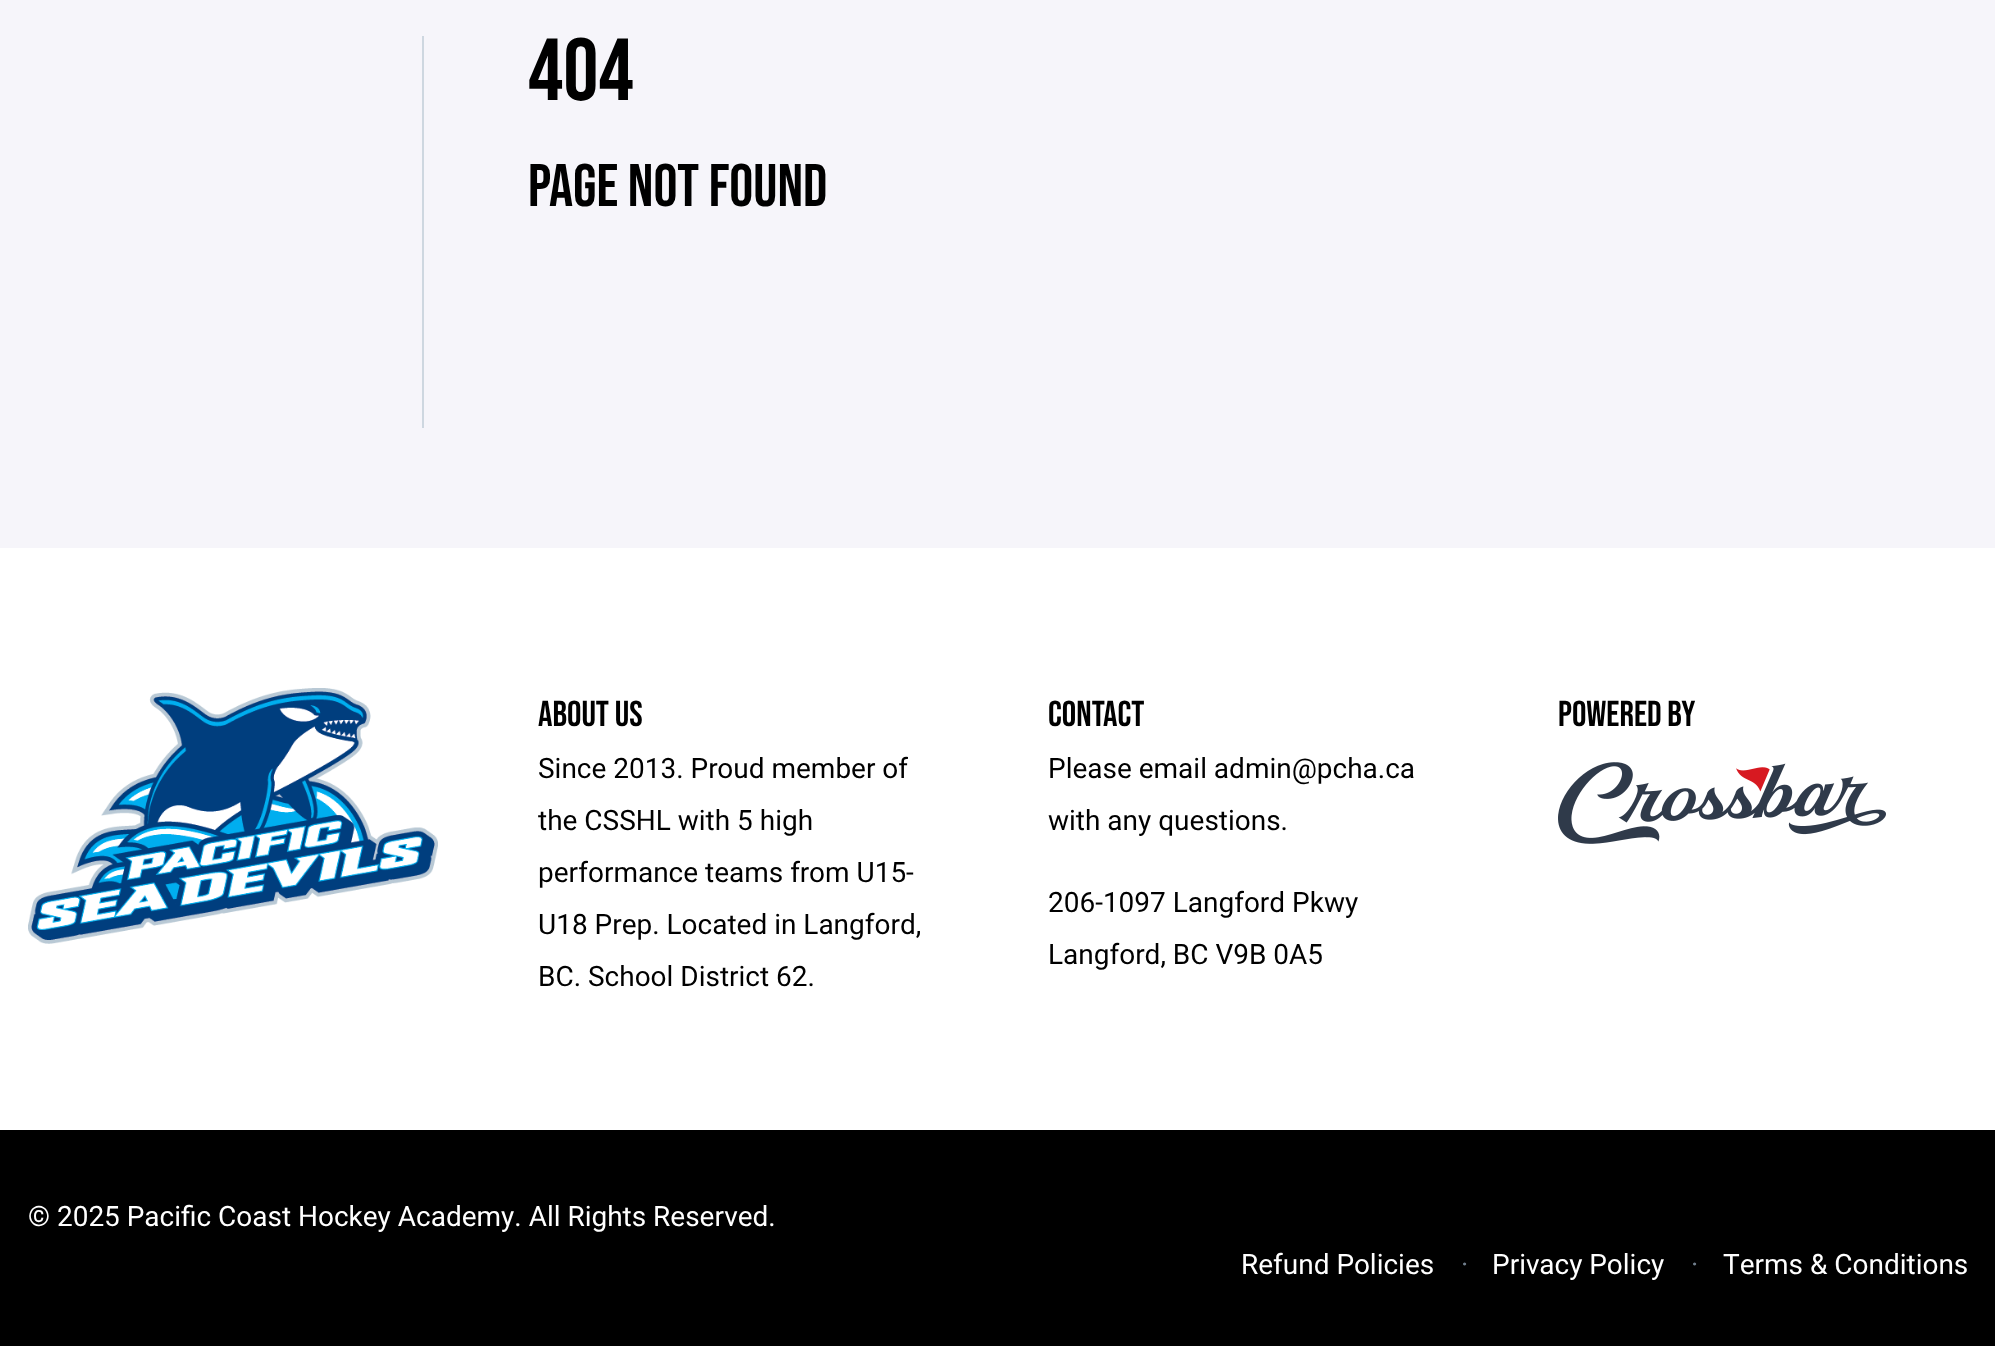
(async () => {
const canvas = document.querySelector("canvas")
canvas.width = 1995
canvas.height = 1346
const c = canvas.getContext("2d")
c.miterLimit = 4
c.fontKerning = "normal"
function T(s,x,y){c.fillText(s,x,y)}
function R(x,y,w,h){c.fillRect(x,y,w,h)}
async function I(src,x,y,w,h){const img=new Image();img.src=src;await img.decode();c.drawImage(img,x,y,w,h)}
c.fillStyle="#f6f5fa"
R(0,0,1995,1346)
c.fillStyle="#ced7e0"
R(422,36,2,392)
c.font="88px Bebas Neue"
c.fillStyle="#000"
T("404",528,100)
c.font="60px Bebas Neue"
T("PAGE NOT FOUND",528,206)
c.fillStyle="#fff"
R(0,548,1995,582)
await I("1.png",28,688,410,256)
c.font="36px Bebas Neue"
c.fillStyle="#000"
T("ABOUT US",538,726)
c.font="28px Roboto"
T("Since 2013. Proud member of",538,778)
T("the CSSHL with 5 high",538,830)
T("performance teams from U15-",538,882)
T("U18 Prep. Located in Langford,",538,934)
T("BC. School District 62.",538,986)
c.font="36px Bebas Neue"
T("CONTACT",1048,726)
c.font="28px Roboto"
T("Please email admin@pcha.ca",1048,778)
T("with any questions.",1048,830)
T("206-1097 Langford Pkwy",1048,912)
T("Langford, BC V9B 0A5",1048,964)
c.font="36px Bebas Neue"
T("POWERED BY",1558,726)
await I("2.png",1558,762,328,82)
R(0,1130,1995,216)
c.font="28px Roboto"
c.fillStyle="#fff"
T("© 2025 Pacific Coast Hockey Academy. All Rights Reserved.",28,1226)
T("Refund Policies",1241,1274)
c.fillStyle="#707e8c"
T("·",1461,1274)
c.fillStyle="#fff"
T("Privacy Policy",1492,1274)
c.fillStyle="#707e8c"
T("·",1691,1274)
c.fillStyle="#fff"
T("Terms & Conditions",1723,1274)
})()
